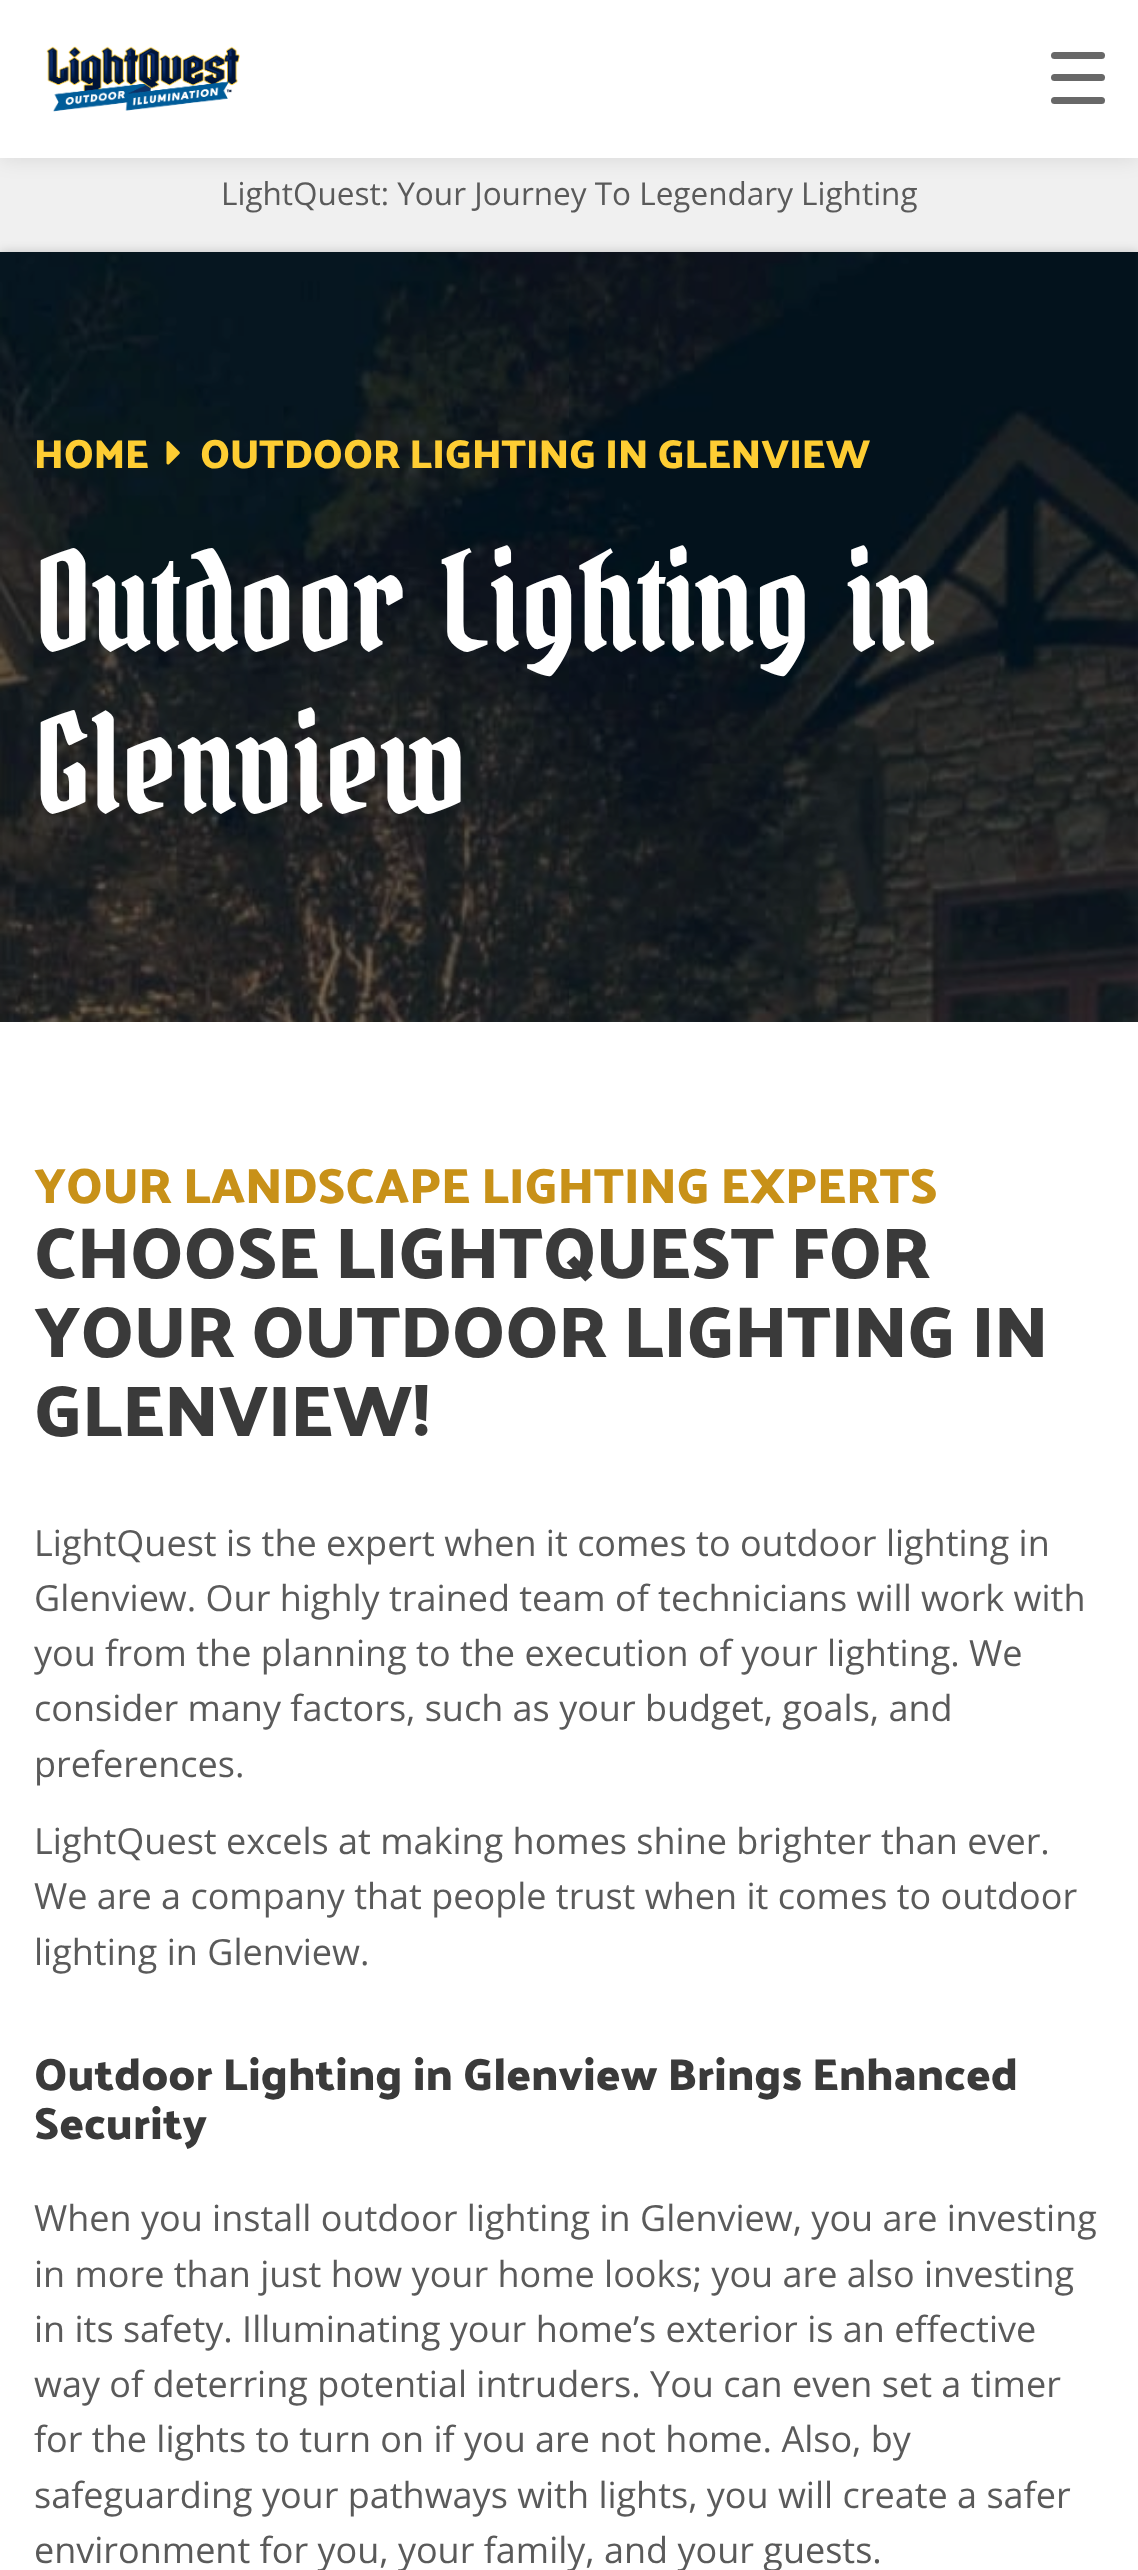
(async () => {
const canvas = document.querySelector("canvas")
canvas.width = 1138
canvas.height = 2570
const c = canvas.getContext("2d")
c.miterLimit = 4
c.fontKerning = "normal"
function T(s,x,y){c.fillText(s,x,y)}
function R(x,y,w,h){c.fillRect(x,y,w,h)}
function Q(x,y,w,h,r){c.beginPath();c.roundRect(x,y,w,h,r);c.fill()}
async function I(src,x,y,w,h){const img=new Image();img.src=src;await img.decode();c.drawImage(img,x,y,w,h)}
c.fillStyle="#f0f0f0"
R(0,0,1138,2570)
c.fillStyle="#0000001a"
c.filter="blur(11px)"
c.beginPath()
c.rect(0,0,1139,158)
c.fill()
c.filter="none"
c.fillStyle="#fff"
R(0,0,1138,158)
await I("1.png",46,46,194,66)
c.fillStyle="#686868"
Q(1051,74,54,7,3.5)
Q(1051,52,54,7,3.5)
Q(1051,97,54,7,3.5)
c.font="31.5px Open Sans"
c.fillStyle="#5a5a5a"
T("LightQuest: Your Journey To Legendary Lighting",221,205)
c.fillStyle="#00000030"
c.filter="blur(5.5px)"
c.beginPath()
c.rect(0,252,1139,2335)
c.fill()
c.filter="none"
c.fillStyle="#fff"
R(0,252,1138,2318)
await I("2.png",0,252,1138,770)
c.font="600 40.5px Palanquin Dark"
c.fillStyle="#fecd33"
T("HOME",34,468)
await I("3.png",166,441,14,24)
T("OUTDOOR LIGHTING IN GLENVIEW",200,468)
c.font="135px Bokor"
c.fillStyle="#fff"
T("Outdoor Lighting in",34,652)
T("Glenview",34,814)
c.font="600 49.5px Palanquin Dark"
c.fillStyle="#c89118"
T("YOUR LANDSCAPE LIGHTING EXPERTS",34,1203)
c.font="600 72px Palanquin Dark"
c.fillStyle="#3a3a3a"
T("CHOOSE LIGHTQUEST FOR",34,1278)
T("YOUR OUTDOOR LIGHTING IN",34,1357)
T("GLENVIEW!",34,1436)
c.font="36px Open Sans"
c.fillStyle="#5a5a5a"
T("LightQuest is the expert when it comes to outdoor lighting in",34,1556)
T("Glenview. Our highly trained team of technicians will work with",34,1611)
T("you from the planning to the execution of your lighting. We",34,1666)
T("consider many factors, such as your budget, goals, and",34,1721)
T("preferences.",34,1777)
T("LightQuest excels at making homes shine brighter than ever.",34,1854)
T("We are a company that people trust when it comes to outdoor",34,1909)
T("lighting in Glenview.",34,1965)
c.font="600 45px Palanquin Dark"
c.fillStyle="#3a3a3a"
T("Outdoor Lighting in Glenview Brings Enhanced",34,2090)
T("Security",34,2139)
c.font="36px Open Sans"
c.fillStyle="#5a5a5a"
T("When you install outdoor lighting in Glenview, you are investing",34,2231)
T("in more than just how your home looks; you are also investing",34,2287)
T("in its safety. Illuminating your home’s exterior is an effective",34,2342)
T("way of deterring potential intruders. You can even set a timer",34,2397)
T("for the lights to turn on if you are not home. Also, by",34,2452)
T("safeguarding your pathways with lights, you will create a safer",34,2508)
T("environment for you, your family, and your guests.",34,2563)
})()
